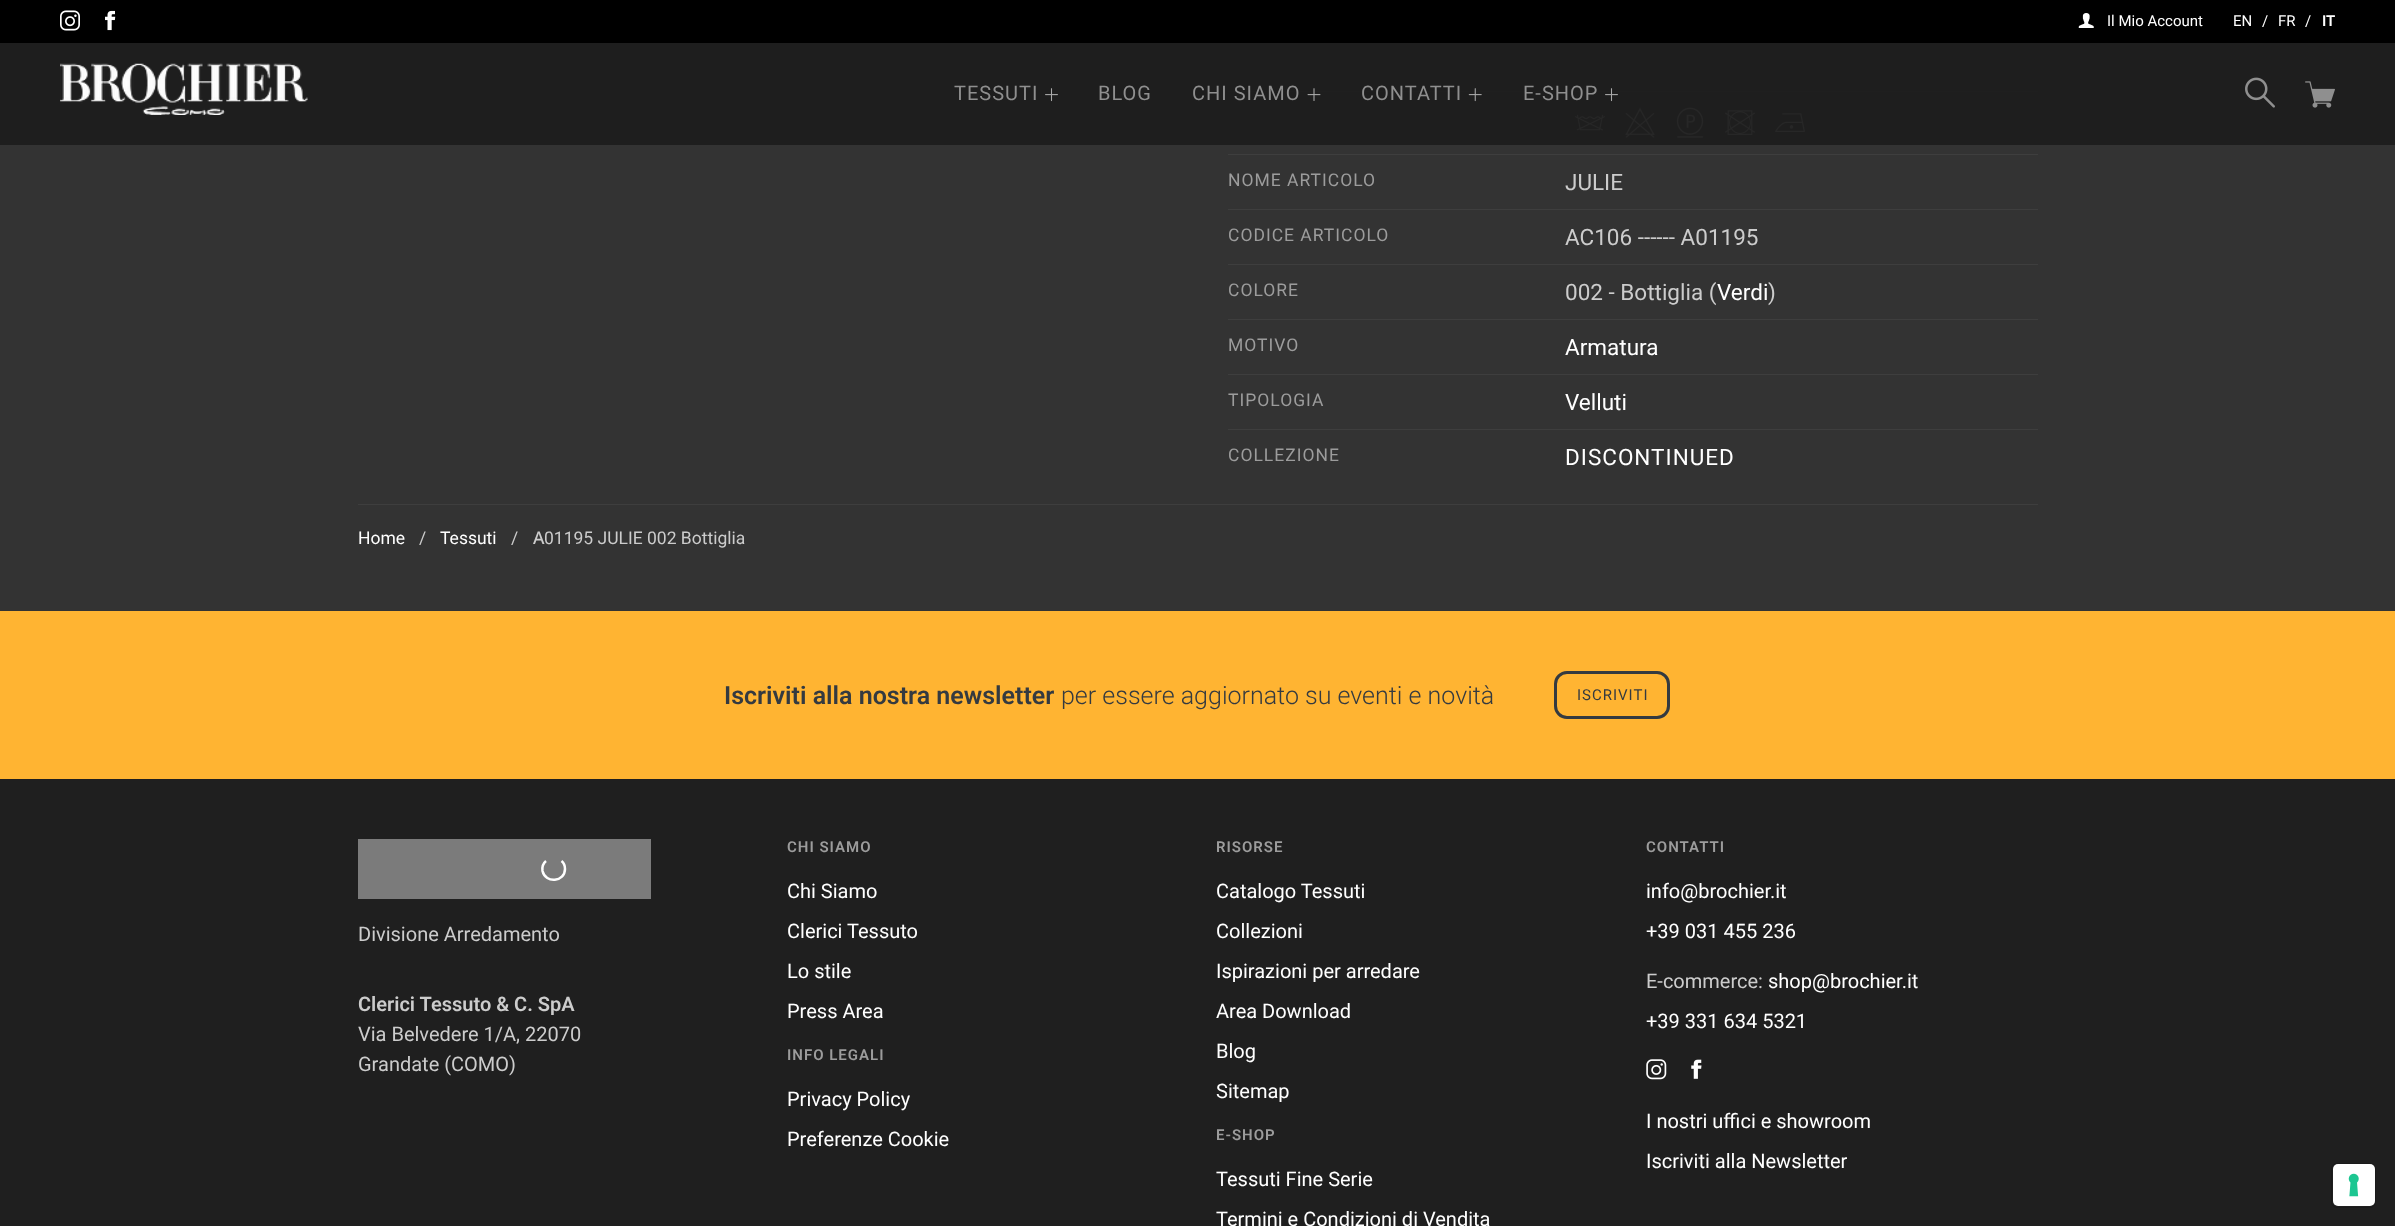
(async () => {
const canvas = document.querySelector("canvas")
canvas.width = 2395
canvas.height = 1226
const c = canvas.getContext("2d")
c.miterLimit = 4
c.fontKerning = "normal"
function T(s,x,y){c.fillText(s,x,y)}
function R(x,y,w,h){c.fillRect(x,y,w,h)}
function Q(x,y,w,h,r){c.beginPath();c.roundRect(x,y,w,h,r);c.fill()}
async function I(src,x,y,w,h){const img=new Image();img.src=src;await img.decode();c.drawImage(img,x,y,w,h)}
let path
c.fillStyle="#333"
R(0,0,2395,1226)
c.fillStyle="#000"
R(0,0,2395,43)
await I("1.png",60,10,20,21)
await I("2.png",105,10,11,21)
await I("3.png",2078,13,16,15)
c.font="15px Roboto"
c.fillStyle="#fff"
T("Il Mio Account",2107,26)
T("EN",2233,26)
T("/",2262,26)
T("FR",2278,26)
T("/",2305,26)
c.font="600 15px Roboto"
T("IT",2322,26)
c.fillStyle="#3e3e3e"
R(1228,91,810,1)
await I("11.png",1575,114,30,17)
await I("12.png",1625,107,30,31)
await I("13.png",1676,107,28,31)
await I("14.png",1725,110,30,25)
await I("15.png",1775,113,30,19)
c.fillStyle="#1e1e1ef2"
R(0,43,2395,102)
await I("4.png",60,63,248,52)
c.letterSpacing="1px"
c.font="20px Roboto"
c.fillStyle="#8f8f8f"
T("TESSUTI",954,100)
await I("5.png",1045,88,13,14)
T("BLOG",1098,100)
T("CHI SIAMO",1192,100)
await I("6.png",1307,88,14,13)
T("CONTATTI",1361,100)
await I("7.png",1468,88,14,14)
T("E-SHOP",1523,100)
await I("8.png",1605,88,13,14)
await I("9.png",2245,77,30,31)
await I("10.png",2305,81,30,27)
c.fillStyle="#3e3e3e"
R(1228,154,810,1)
c.font="17.5px Roboto"
c.fillStyle="#9c9c9c"
T("NOME ARTICOLO",1228,186)
c.letterSpacing="0px"
c.font="22.5px Roboto"
c.fillStyle="#ccc"
T("JULIE",1565,190)
c.fillStyle="#3e3e3e"
R(1228,209,810,1)
c.letterSpacing="1px"
c.font="17.5px Roboto"
c.fillStyle="#9c9c9c"
T("CODICE ARTICOLO",1228,241)
c.letterSpacing="0px"
c.font="22.5px Roboto"
c.fillStyle="#ccc"
T("AC106 ------ A01195",1565,245)
c.fillStyle="#3e3e3e"
R(1228,264,810,1)
c.letterSpacing="1px"
c.font="17.5px Roboto"
c.fillStyle="#9c9c9c"
T("COLORE",1228,296)
c.letterSpacing="0px"
c.font="22.5px Roboto"
c.fillStyle="#ccc"
T("002 - Bottiglia (",1565,300)
c.fillStyle="#fff"
T("Verdi",1717,300)
c.fillStyle="#ccc"
T(")",1768,300)
c.fillStyle="#3e3e3e"
R(1228,319,810,1)
c.letterSpacing="1px"
c.font="17.5px Roboto"
c.fillStyle="#9c9c9c"
T("MOTIVO",1228,351)
c.letterSpacing="0px"
c.font="22.5px Roboto"
c.fillStyle="#fff"
T("Armatura",1565,355)
c.fillStyle="#3e3e3e"
R(1228,374,810,1)
c.letterSpacing="1px"
c.font="17.5px Roboto"
c.fillStyle="#9c9c9c"
T("TIPOLOGIA",1228,406)
c.letterSpacing="0px"
c.font="22.5px Roboto"
c.fillStyle="#fff"
T("Velluti",1565,410)
c.fillStyle="#3e3e3e"
R(1228,429,810,1)
c.letterSpacing="1px"
c.font="17.5px Roboto"
c.fillStyle="#9c9c9c"
T("COLLEZIONE",1228,461)
c.font="22.5px Roboto"
c.fillStyle="#fff"
T("DISCONTINUED",1565,465)
c.fillStyle="#3e3e3e"
R(358,504,1680,1)
c.letterSpacing="0px"
c.font="17.5px Roboto"
c.fillStyle="#fff"
T("Home",358,544)
c.fillStyle="#ccc"
T("/",419,544)
c.fillStyle="#fff"
T("Tessuti",440,544)
c.fillStyle="#ccc"
T("/",511,544)
c.font="500 17.5px Noto Sans"
T("A",533,544)
c.font="17.5px Roboto"
T("01195 JULIE 002 Bottiglia",544,544)
c.fillStyle="#ffb432"
R(0,611,2395,168)
c.font="600 25px Roboto"
c.fillStyle="#343a40"
T("Iscriviti alla nostra newsletter",724,704)
c.font="300 25px Roboto"
T("per essere aggiornato su eventi e novità",1061,704)
c.beginPath()
c.roundRect(1555.5,672.5,113,45,11.5)
c.strokeStyle="#343a40"
c.lineWidth=3
c.stroke()
c.letterSpacing="1px"
c.font="15px Roboto"
T("ISCRIVITI",1577,700)
c.fillStyle="#1f1f1f"
R(0,779,2395,447)
c.fillStyle="#7b7b7b"
R(358,839,293,60)
path = new Path2D("M561.5 861c2.5 2 3.5 5 3.5 8c0 13-19.5 15-22.5 2c-.5-3.5 .5-7.5 3.5-10")
c.strokeStyle="#fff"
c.lineWidth=2.5
c.stroke(path)
c.letterSpacing="0px"
c.font="20px Roboto"
c.fillStyle="#ccc"
T("Divisione Arredamento",358,941)
c.font="600 20px Roboto"
T("Clerici Tessuto & C. SpA",358,1011)
c.font="20px Roboto"
T("Via Belvedere 1/A, 22070",358,1041)
T("Grandate (COMO)",358,1071)
c.letterSpacing="1px"
c.font="600 15px Roboto"
c.fillStyle="#9c9c9c"
T("CHI SIAMO",787,852)
c.letterSpacing="0px"
c.font="20px Roboto"
c.fillStyle="#fff"
T("Chi Siamo",787,898)
T("Clerici Tessuto",787,938)
T("Lo stile",787,978)
T("Press Area",787,1018)
c.letterSpacing="1px"
c.font="600 15px Roboto"
c.fillStyle="#9c9c9c"
T("INFO LEGALI",787,1060)
c.letterSpacing="0px"
c.font="20px Roboto"
c.fillStyle="#fff"
T("Privacy Policy",787,1106)
T("Preferenze Cookie",787,1146)
c.letterSpacing="1px"
c.font="600 15px Roboto"
c.fillStyle="#9c9c9c"
T("RISORSE",1216,852)
c.letterSpacing="0px"
c.font="20px Roboto"
c.fillStyle="#fff"
T("Catalogo Tessuti",1216,898)
T("Collezioni",1216,938)
T("Ispirazioni per arredare",1216,978)
T("Area Download",1216,1018)
T("Blog",1216,1058)
T("Sitemap",1216,1098)
c.letterSpacing="1px"
c.font="600 15px Roboto"
c.fillStyle="#9c9c9c"
T("E-SHOP",1216,1140)
c.letterSpacing="0px"
c.font="20px Roboto"
c.fillStyle="#fff"
T("Tessuti Fine Serie",1216,1186)
T("Termini e Condizioni di Vendita",1216,1226)
c.letterSpacing="1px"
c.font="600 15px Roboto"
c.fillStyle="#9c9c9c"
T("CONTATTI",1646,852)
c.letterSpacing="0px"
c.font="20px Roboto"
c.fillStyle="#fff"
T("info@brochier.it",1646,898)
T("+39 031 455 236",1646,938)
c.fillStyle="#ccc"
T("E-commerce:",1646,988)
c.fillStyle="#fff"
T("shop@brochier.it",1768,988)
T("+39 331 634 5321",1646,1028)
await I("16.png",1646,1059,21,21)
await I("17.png",1691,1059,11,20)
T("I nostri uffici e showroom",1646,1128)
T("Iscriviti alla Newsletter",1646,1168)
c.beginPath()
c.roundRect(2331.5,1163.5,44,44,5.5)
c.strokeStyle="#1a1a1a"
c.lineWidth=1
c.stroke()
Q(2333,1164,42,42,5)
await I("18.png",2348,1173,11,24)
})()
